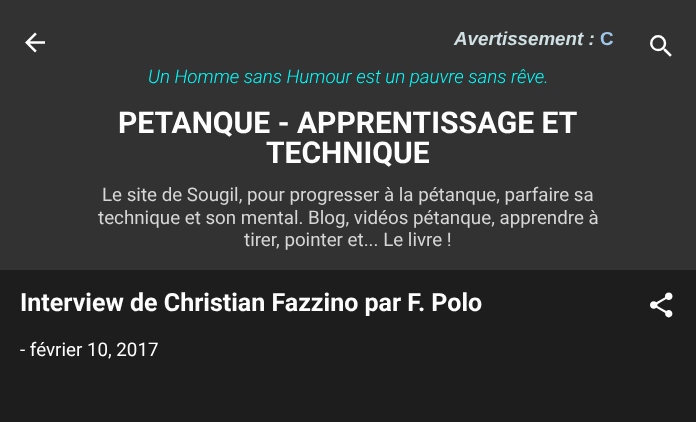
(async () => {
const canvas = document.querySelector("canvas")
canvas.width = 696
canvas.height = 422
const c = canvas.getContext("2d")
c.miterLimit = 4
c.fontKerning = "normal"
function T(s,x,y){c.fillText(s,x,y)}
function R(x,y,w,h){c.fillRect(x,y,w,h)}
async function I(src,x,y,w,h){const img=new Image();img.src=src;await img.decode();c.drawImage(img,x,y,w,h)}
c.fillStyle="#323232"
R(0,0,696,422)
await I("1.png",25,32,20,21)
c.font="italic bold 18.75px Liberation Sans"
c.fillStyle="#d0e0e3"
T("Avertissement :",454,45)
c.font="bold 18.75px Liberation Sans"
c.fillStyle="#9fc5e8"
T("C",600,45)
c.font="italic 300 18.75px Roboto"
c.fillStyle="#0ff"
T("Un Homme sans Humour est un pauvre sans rêve.",148,83)
c.font="bold 30px Roboto"
c.fillStyle="#fff"
T("PETANQUE - APPRENTISSAGE ET",118,133)
T("TECHNIQUE",266,163)
c.font="18.75px Roboto"
c.fillStyle="#d6d6d6"
T("Le site de Sougil, pour progresser à la pétanque, parfaire sa",102,201)
T("technique et son mental. Blog, vidéos pétanque, apprendre à",98,224)
T("tirer, pointer et... Le livre !",244,246)
await I("2.png",650,35,22,22)
c.fillStyle="#1d1d1d"
R(0,270,696,152)
c.font="bold 25px Roboto"
c.fillStyle="#fff"
T("Interview de Christian Fazzino par F. Polo",20,311)
await I("3.png",650,292,23,26)
c.font="18.75px Roboto"
T("- février 10, 2017",20,356)
})()
